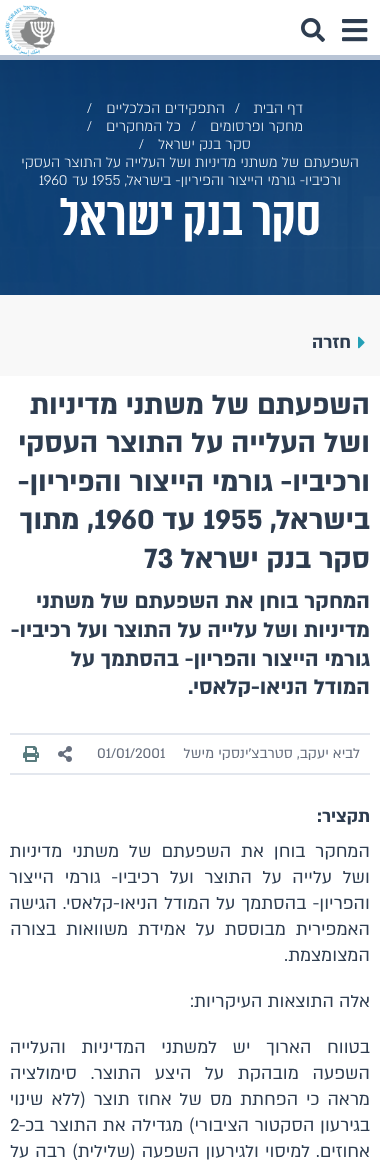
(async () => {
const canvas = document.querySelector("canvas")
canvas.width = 380
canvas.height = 1175
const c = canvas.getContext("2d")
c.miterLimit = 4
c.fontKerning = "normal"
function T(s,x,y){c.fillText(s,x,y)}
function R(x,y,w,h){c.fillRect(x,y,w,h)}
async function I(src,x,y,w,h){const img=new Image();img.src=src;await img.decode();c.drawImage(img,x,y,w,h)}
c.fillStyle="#f8f8f8"
R(0,0,380,1175)
c.fillStyle="#fff"
R(0,0,380,55)
c.fillStyle="#b8c4d5"
R(0,55,380,5)
await I("1.png",342,19,26,23)
await I("2.png",301,18,24,24)
await I("3.png",5,5,50,52)
await I("4.png",0,60,380,235)
c.direction="rtl"
c.font="300 16px 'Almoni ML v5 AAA'"
c.fillStyle="#fff"
T("דף הבית",303,113)
c.direction="ltr"
T("/",235,113)
c.direction="rtl"
T("התפקידים הכלכליים",225,113)
c.direction="ltr"
T("/",87,113)
c.direction="rtl"
T("מחקר ופרסומים",303,131)
c.direction="ltr"
T("/",191,131)
c.direction="rtl"
T("כל המחקרים",181,131)
c.direction="ltr"
T("/",87,131)
c.direction="rtl"
T("סקר בנק ישראל",251,149)
c.direction="ltr"
T("/",139,149)
c.direction="rtl"
T("השפעתם של משתני מדיניות ושל העלייה על התוצר העסקי",359,167)
T("ורכיביו- גורמי הייצור והפיריון- בישראל,",341,185)
c.direction="ltr"
T("1955",92,185)
c.direction="rtl"
T("עד",88,185)
c.direction="ltr"
T("1960",39,185)
c.direction="rtl"
c.font="bold 55px 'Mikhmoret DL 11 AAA'"
T("סקר בנק ישראל",321,235)
await I("5.png",358,336,7,13)
c.font="bold 20px 'Almoni ML v5 AAA'"
c.fillStyle="#2e3d50"
T("חזרה",351,348)
c.fillStyle="#fff"
R(0,376,380,799)
c.font="bold 32px 'Almoni ML v5 AAA'"
c.fillStyle="#2e3d50"
T("השפעתם של משתני מדיניות",370,414)
T("ושל העלייה על התוצר העסקי",370,452)
T("ורכיביו- גורמי הייצור והפיריון-",370,491)
T("בישראל,",370,529)
c.direction="ltr"
T("1955",203,529)
c.direction="rtl"
T("עד",195,529)
c.direction="ltr"
T("1960",94,529)
c.direction="rtl"
T(", מתוך",94,529)
T("סקר בנק ישראל",370,568)
c.direction="ltr"
T("73",144,568)
c.direction="rtl"
c.font="bold 24px 'Almoni ML v5 AAA'"
T("המחקר בוחן את השפעתם של משתני",370,608)
T("מדיניות ושל עלייה על התוצר ועל רכיביו-",370,637)
T("גורמי הייצור והפריון- בהסתמך על",370,666)
T("המודל הניאו-קלאסי.",370,694)
c.fillStyle="#e3e7ee"
R(10,733,360,2)
R(10,773,360,2)
c.font="16px 'Almoni ML v5 AAA'"
c.fillStyle="#676f7e"
T("לביא יעקב, סטרבצ'ינסקי מישל",360,758)
c.direction="ltr"
T("01/01/2001",97,758)
await I("6.png",58,746,14,16)
await I("7.png",23,746,16,16)
c.direction="rtl"
c.font="bold 20px 'Almoni ML v5 AAA'"
c.fillStyle="#2e3d50"
T("תקציר:",370,822)
c.wordSpacing="4.75px"
c.font="20px 'Almoni ML v5 AAA'"
T("המחקר בוחן את השפעתם של משתני מדיניות",370,857)
c.wordSpacing="5.5px"
T("ושל עלייה על התוצר ועל רכיביו- גורמי הייצור",370,883)
c.wordSpacing="1px"
T("והפריון- בהסתמך על המודל הניאו-קלאסי. הגישה",370,909)
c.wordSpacing="4.75px"
T("האמפירית מבוססת על אמידת משוואות בצורה",370,935)
c.wordSpacing="0px"
T("המצומצמת.",370,961)
T("אלה התוצאות העיקריות:",370,1007)
c.wordSpacing="10.5px"
T("בטווח הארוך יש למשתני המדיניות והעלייה",370,1053)
c.wordSpacing="8.5px"
T("השפעה מובהקת על היצע התוצר. סימולציה",370,1079)
c.wordSpacing="2.75px"
T("מראה כי הפחתת מס של אחוז תוצר (ללא שינוי",370,1105)
c.wordSpacing="0.5px"
T("בגירעון הסקטור הציבורי) מגדילה את התוצר בכ-",370,1131)
c.wordSpacing="0px"
c.direction="ltr"
T("2",10,1131)
c.wordSpacing="1px"
c.direction="rtl"
T("אחוזים. למיסוי ולגירעון השפעה (שלילית) רבה על",370,1157)
})()
